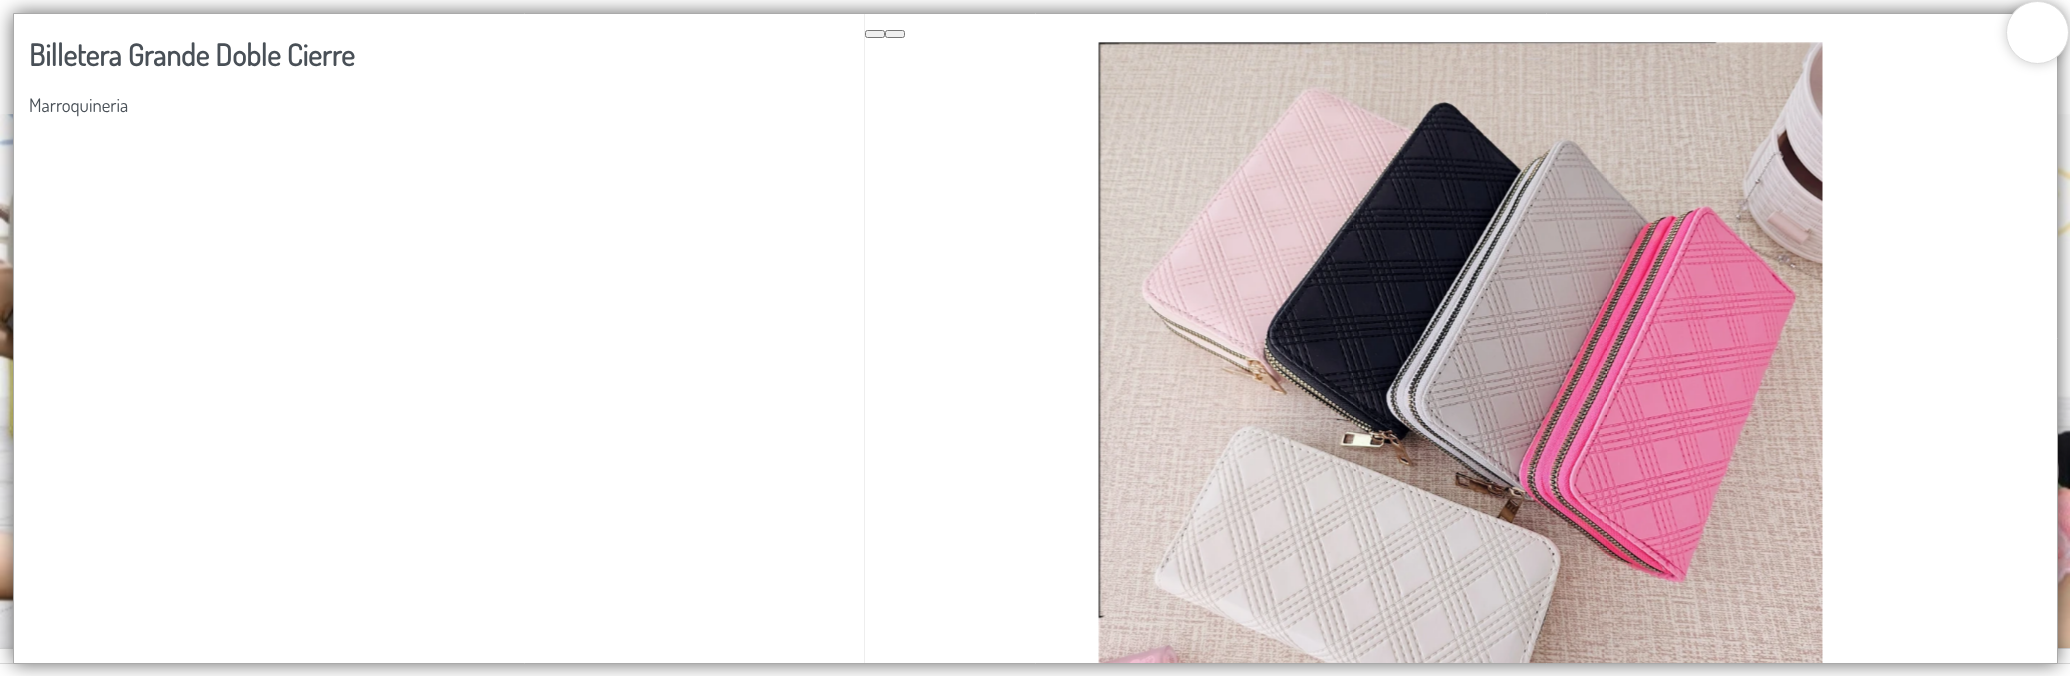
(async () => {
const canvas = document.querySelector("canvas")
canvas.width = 2070
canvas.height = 676
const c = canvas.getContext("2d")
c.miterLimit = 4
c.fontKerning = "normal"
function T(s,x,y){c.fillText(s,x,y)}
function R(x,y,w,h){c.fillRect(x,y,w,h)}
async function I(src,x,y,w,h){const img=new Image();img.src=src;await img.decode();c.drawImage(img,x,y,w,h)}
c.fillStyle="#fff"
R(0,0,2070,676)
await I("2.png",0,114,2070,534)
c.fillStyle="#0000001a"
c.filter="blur(2.5px)"
c.beginPath()
c.rect(0,648,2070,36)
c.fill()
c.filter="none"
c.fillStyle="#fff"
R(0,649,2070,27)
c.fillStyle="#ddd"
R(0,648,2070,1)
R(0,663,2070,1)
c.fillStyle="#00000099"
c.filter="blur(9.5px)"
c.beginPath()
c.rect(13,13,2045,651)
c.fill()
c.filter="none"
c.fillStyle="#fff"
c.beginPath()
c.rect(13.5,13.5,2044,650)
c.fill()
c.strokeStyle="#aaa"
c.stroke()
c.fillStyle="#eee"
R(864,14,1,649)
c.font="bold 30px Dosis"
c.fillStyle="#495057"
T("Billetera Grande Doble Cierre",29,66)
c.font="18.75px Dosis"
T("Marroquineria",29,112)
c.fillStyle="#efefef"
c.beginPath()
c.roundRect(865.5,30.5,19,7,2)
c.fill()
c.strokeStyle="#767676"
c.stroke()
c.beginPath()
c.roundRect(885.5,30.5,19,7,2)
c.fill()
c.stroke()
await I("1.png",1098,42,725,621)
c.fillStyle="#00000033"
c.filter="blur(6px)"
c.beginPath()
c.roundRect(2006,1,63,63,31.5)
c.fill()
c.filter="none"
c.fillStyle="#fff"
c.beginPath()
c.arc(2037.5,32.5,31,0,7)
c.fill()
c.strokeStyle="#ddd"
c.stroke()
})()
